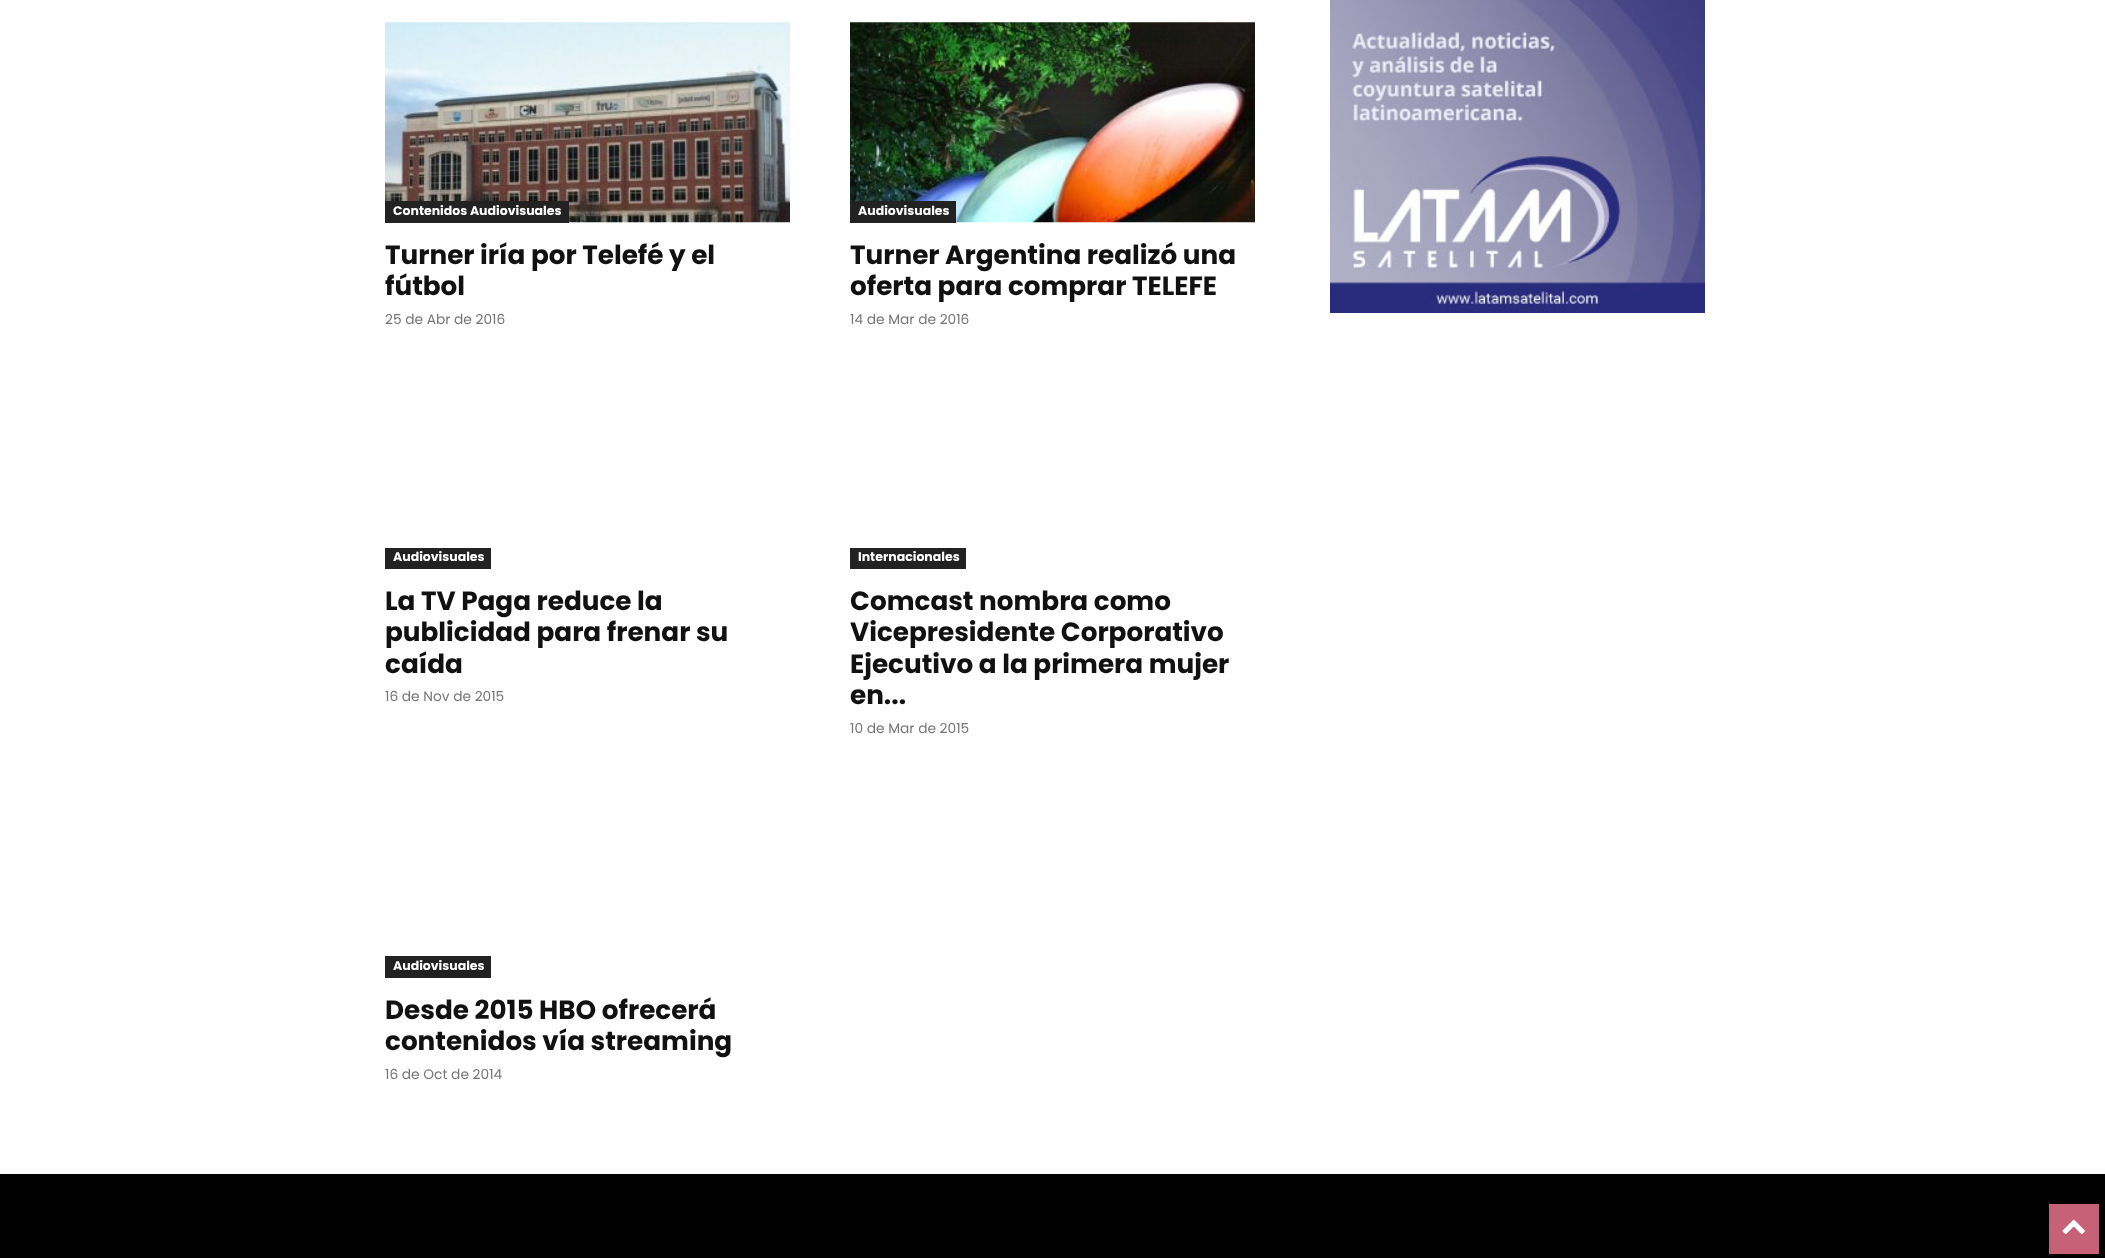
(async () => {
const canvas = document.querySelector("canvas")
canvas.width = 2105
canvas.height = 1258
const c = canvas.getContext("2d")
c.miterLimit = 4
c.fontKerning = "normal"
function T(s,x,y){c.fillText(s,x,y)}
function R(x,y,w,h){c.fillRect(x,y,w,h)}
async function I(src,x,y,w,h){const img=new Image();img.src=src;await img.decode();c.drawImage(img,x,y,w,h)}
c.fillStyle="#fff"
R(0,0,2105,1258)
await I("1.png",1330,0,375,313)
await I("2.png",385,22,405,201)
c.fillStyle="#222"
R(385,201,184,22)
c.font="bold 12.5px Poppins"
c.fillStyle="#fff"
T("Contenidos Audiovisuales",393,215)
c.font="bold 26.25px Poppins"
c.fillStyle="#111"
T("Turner iría por Telefé y el",385,264)
T("fútbol",385,295)
c.font="13.75px Poppins"
c.fillStyle="#767676"
T("25 de Abr de 2016",385,324)
await I("3.png",850,22,405,201)
c.fillStyle="#222"
R(850,201,106,22)
c.font="bold 12.5px Poppins"
c.fillStyle="#fff"
T("Audiovisuales",858,215)
c.font="bold 26.25px Poppins"
c.fillStyle="#111"
T("Turner Argentina realizó una",850,264)
T("oferta para comprar TELEFE",850,295)
c.font="13.75px Poppins"
c.fillStyle="#767676"
T("14 de Mar de 2016",850,324)
c.fillStyle="#222"
R(385,548,106,21)
c.font="bold 12.5px Poppins"
c.fillStyle="#fff"
T("Audiovisuales",393,561)
c.font="bold 26.25px Poppins"
c.fillStyle="#111"
T("La TV Paga reduce la",385,610)
T("publicidad para frenar su",385,641)
T("caída",385,673)
c.font="13.75px Poppins"
c.fillStyle="#767676"
T("16 de Nov de 2015",385,701)
c.fillStyle="#222"
R(850,548,116,21)
c.font="bold 12.5px Poppins"
c.fillStyle="#fff"
T("Internacionales",858,561)
c.font="bold 26.25px Poppins"
c.fillStyle="#111"
T("Comcast nombra como",850,610)
T("Vicepresidente Corporativo",850,641)
T("Ejecutivo a la primera mujer",850,673)
T("en...",850,704)
c.font="13.75px Poppins"
c.fillStyle="#767676"
T("10 de Mar de 2015",850,733)
c.fillStyle="#222"
R(385,956,106,22)
c.font="bold 12.5px Poppins"
c.fillStyle="#fff"
T("Audiovisuales",393,970)
c.font="bold 26.25px Poppins"
c.fillStyle="#111"
T("Desde 2015 HBO ofrecerá",385,1019)
T("contenidos vía streaming",385,1050)
c.font="13.75px Poppins"
c.fillStyle="#767676"
T("16 de Oct de 2014",385,1079)
c.fillStyle="#000"
R(0,1174,2105,84)
c.fillStyle="#c66177"
R(2049,1204,50,50)
await I("4.png",2062,1219,23,16)
})()
